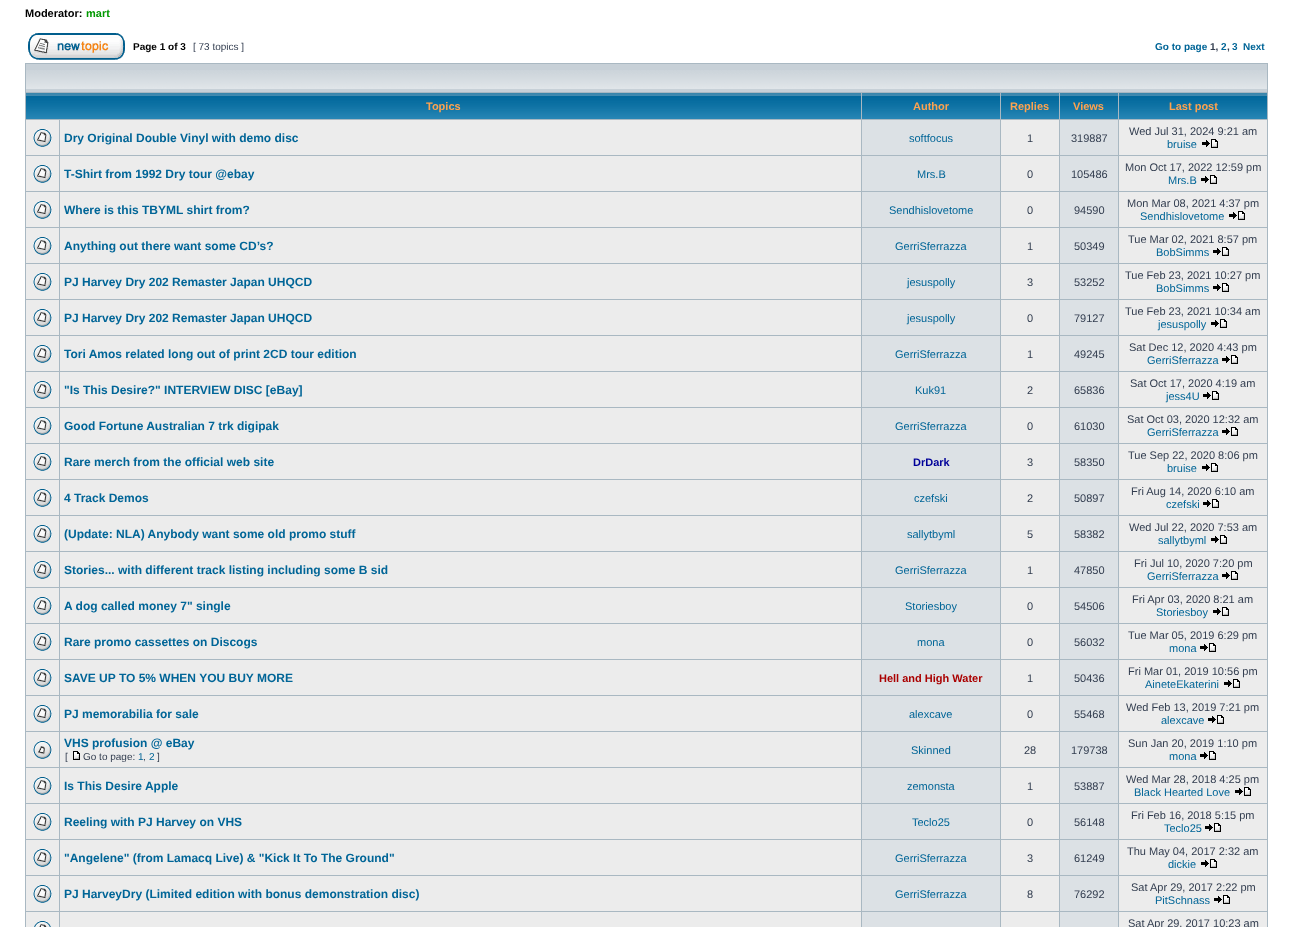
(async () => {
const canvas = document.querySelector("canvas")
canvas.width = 1293
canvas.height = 927
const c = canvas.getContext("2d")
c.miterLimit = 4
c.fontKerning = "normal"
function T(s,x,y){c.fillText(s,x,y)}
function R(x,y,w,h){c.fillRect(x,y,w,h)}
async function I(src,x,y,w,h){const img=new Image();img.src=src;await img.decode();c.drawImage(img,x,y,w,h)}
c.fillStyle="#fff"
R(0,0,1293,927)
c.font="bold 11px Liberation Sans"
c.fillStyle="#000"
T("Moderator:",25,17)
c.fillStyle="#090"
T("mart",86,17)
await I("1.png",28,33,97,27)
c.font="bold 10px Liberation Sans"
c.fillStyle="#000"
T("Page 1 of 3",133,50)
c.font="10px Liberation Sans"
c.fillStyle="#323d4f"
T("[ 73 topics ]",193,50)
c.font="bold 10px Liberation Sans"
c.fillStyle="#006597"
T("Go to page",1155,50)
c.fillStyle="#323d4f"
T("1,",1210,50)
c.fillStyle="#006597"
T("2",1221,50)
c.fillStyle="#323d4f"
T(",",1227,50)
c.fillStyle="#006597"
T("3",1232,50)
T("Next",1243,50)
c.fillStyle="#a9b8c2"
R(25,63,1243,864)
c.fillStyle="#c7d0d7"
R(26,64,1241,28)
await I("2.png",26,70,1241,19)
await I("3.png",26,93,835,26)
c.font="bold 11px Liberation Sans"
c.fillStyle="#ffa34f"
T("Topics",426,110)
await I("4.png",862,93,138,26)
T("Author",913,110)
await I("5.png",1001,93,58,26)
T("Replies",1010,110)
await I("5.png",1060,93,58,26)
T("Views",1073,110)
await I("6.png",1119,93,148,26)
T("Last post",1169,110)
c.fillStyle="#ececec"
R(26,120,33,35)
await I("7.png",33,129,19,18)
R(60,120,801,35)
c.font="bold 12px Liberation Sans"
c.fillStyle="#006597"
T("Dry Original Double Vinyl with demo disc",64,142)
c.fillStyle="#dce1e5"
R(862,120,138,35)
c.font="11px Liberation Sans"
c.fillStyle="#006597"
T("softfocus",909,142)
c.fillStyle="#ececec"
R(1001,120,58,35)
c.fillStyle="#323d4f"
T("1",1027,142)
c.fillStyle="#dce1e5"
R(1060,120,58,35)
c.fillStyle="#323d4f"
T("319887",1071,142)
c.fillStyle="#ececec"
R(1119,120,148,35)
c.fillStyle="#323d4f"
T("Wed Jul 31, 2024 9:21 am",1129,135)
c.fillStyle="#006597"
T("bruise",1167,148)
await I("8.png",1202,139,16,9)
c.fillStyle="#ececec"
R(26,156,33,35)
await I("7.png",33,165,19,18)
R(60,156,801,35)
c.font="bold 12px Liberation Sans"
c.fillStyle="#006597"
T("T-Shirt from 1992 Dry tour @ebay",64,178)
c.fillStyle="#dce1e5"
R(862,156,138,35)
c.font="11px Liberation Sans"
c.fillStyle="#006597"
T("Mrs.B",917,178)
c.fillStyle="#ececec"
R(1001,156,58,35)
c.fillStyle="#323d4f"
T("0",1027,178)
c.fillStyle="#dce1e5"
R(1060,156,58,35)
c.fillStyle="#323d4f"
T("105486",1071,178)
c.fillStyle="#ececec"
R(1119,156,148,35)
c.fillStyle="#323d4f"
T("Mon Oct 17, 2022 12:59 pm",1125,171)
c.fillStyle="#006597"
T("Mrs.B",1168,184)
await I("8.png",1201,175,16,9)
c.fillStyle="#ececec"
R(26,192,33,35)
await I("7.png",33,201,19,18)
R(60,192,801,35)
c.font="bold 12px Liberation Sans"
c.fillStyle="#006597"
T("Where is this TBYML shirt from?",64,214)
c.fillStyle="#dce1e5"
R(862,192,138,35)
c.font="11px Liberation Sans"
c.fillStyle="#006597"
T("Sendhislovetome",889,214)
c.fillStyle="#ececec"
R(1001,192,58,35)
c.fillStyle="#323d4f"
T("0",1027,214)
c.fillStyle="#dce1e5"
R(1060,192,58,35)
c.fillStyle="#323d4f"
T("94590",1074,214)
c.fillStyle="#ececec"
R(1119,192,148,35)
c.fillStyle="#323d4f"
T("Mon Mar 08, 2021 4:37 pm",1127,207)
c.fillStyle="#006597"
T("Sendhislovetome",1140,220)
await I("8.png",1229,211,16,9)
c.fillStyle="#ececec"
R(26,228,33,35)
await I("7.png",33,237,19,18)
R(60,228,801,35)
c.font="bold 12px Liberation Sans"
c.fillStyle="#006597"
T("Anything out there want some CD’s?",64,250)
c.fillStyle="#dce1e5"
R(862,228,138,35)
c.font="11px Liberation Sans"
c.fillStyle="#006597"
T("GerriSferrazza",895,250)
c.fillStyle="#ececec"
R(1001,228,58,35)
c.fillStyle="#323d4f"
T("1",1027,250)
c.fillStyle="#dce1e5"
R(1060,228,58,35)
c.fillStyle="#323d4f"
T("50349",1074,250)
c.fillStyle="#ececec"
R(1119,228,148,35)
c.fillStyle="#323d4f"
T("Tue Mar 02, 2021 8:57 pm",1128,243)
c.fillStyle="#006597"
T("BobSimms",1156,256)
await I("8.png",1213,247,16,9)
c.fillStyle="#ececec"
R(26,264,33,35)
await I("7.png",33,273,19,18)
R(60,264,801,35)
c.font="bold 12px Liberation Sans"
c.fillStyle="#006597"
T("PJ Harvey Dry 202 Remaster Japan UHQCD",64,286)
c.fillStyle="#dce1e5"
R(862,264,138,35)
c.font="11px Liberation Sans"
c.fillStyle="#006597"
T("jesuspolly",907,286)
c.fillStyle="#ececec"
R(1001,264,58,35)
c.fillStyle="#323d4f"
T("3",1027,286)
c.fillStyle="#dce1e5"
R(1060,264,58,35)
c.fillStyle="#323d4f"
T("53252",1074,286)
c.fillStyle="#ececec"
R(1119,264,148,35)
c.fillStyle="#323d4f"
T("Tue Feb 23, 2021 10:27 pm",1125,279)
c.fillStyle="#006597"
T("BobSimms",1156,292)
await I("8.png",1213,283,16,9)
c.fillStyle="#ececec"
R(26,300,33,35)
await I("7.png",33,309,19,18)
R(60,300,801,35)
c.font="bold 12px Liberation Sans"
c.fillStyle="#006597"
T("PJ Harvey Dry 202 Remaster Japan UHQCD",64,322)
c.fillStyle="#dce1e5"
R(862,300,138,35)
c.font="11px Liberation Sans"
c.fillStyle="#006597"
T("jesuspolly",907,322)
c.fillStyle="#ececec"
R(1001,300,58,35)
c.fillStyle="#323d4f"
T("0",1027,322)
c.fillStyle="#dce1e5"
R(1060,300,58,35)
c.fillStyle="#323d4f"
T("79127",1074,322)
c.fillStyle="#ececec"
R(1119,300,148,35)
c.fillStyle="#323d4f"
T("Tue Feb 23, 2021 10:34 am",1125,315)
c.fillStyle="#006597"
T("jesuspolly",1158,328)
await I("8.png",1211,319,16,9)
c.fillStyle="#ececec"
R(26,336,33,35)
await I("7.png",33,345,19,18)
R(60,336,801,35)
c.font="bold 12px Liberation Sans"
c.fillStyle="#006597"
T("Tori Amos related long out of print 2CD tour edition",64,358)
c.fillStyle="#dce1e5"
R(862,336,138,35)
c.font="11px Liberation Sans"
c.fillStyle="#006597"
T("GerriSferrazza",895,358)
c.fillStyle="#ececec"
R(1001,336,58,35)
c.fillStyle="#323d4f"
T("1",1027,358)
c.fillStyle="#dce1e5"
R(1060,336,58,35)
c.fillStyle="#323d4f"
T("49245",1074,358)
c.fillStyle="#ececec"
R(1119,336,148,35)
c.fillStyle="#323d4f"
T("Sat Dec 12, 2020 4:43 pm",1129,351)
c.fillStyle="#006597"
T("GerriSferrazza",1147,364)
await I("8.png",1222,355,16,9)
c.fillStyle="#ececec"
R(26,372,33,35)
await I("7.png",33,381,19,18)
R(60,372,801,35)
c.font="bold 12px Liberation Sans"
c.fillStyle="#006597"
T("\"Is This Desire?\" INTERVIEW DISC [eBay]",64,394)
c.fillStyle="#dce1e5"
R(862,372,138,35)
c.font="11px Liberation Sans"
c.fillStyle="#006597"
T("Kuk91",915,394)
c.fillStyle="#ececec"
R(1001,372,58,35)
c.fillStyle="#323d4f"
T("2",1027,394)
c.fillStyle="#dce1e5"
R(1060,372,58,35)
c.fillStyle="#323d4f"
T("65836",1074,394)
c.fillStyle="#ececec"
R(1119,372,148,35)
c.fillStyle="#323d4f"
T("Sat Oct 17, 2020 4:19 am",1130,387)
c.fillStyle="#006597"
T("jess4U",1166,400)
await I("8.png",1203,391,16,9)
c.fillStyle="#ececec"
R(26,408,33,35)
await I("7.png",33,417,19,18)
R(60,408,801,35)
c.font="bold 12px Liberation Sans"
c.fillStyle="#006597"
T("Good Fortune Australian 7 trk digipak",64,430)
c.fillStyle="#dce1e5"
R(862,408,138,35)
c.font="11px Liberation Sans"
c.fillStyle="#006597"
T("GerriSferrazza",895,430)
c.fillStyle="#ececec"
R(1001,408,58,35)
c.fillStyle="#323d4f"
T("0",1027,430)
c.fillStyle="#dce1e5"
R(1060,408,58,35)
c.fillStyle="#323d4f"
T("61030",1074,430)
c.fillStyle="#ececec"
R(1119,408,148,35)
c.fillStyle="#323d4f"
T("Sat Oct 03, 2020 12:32 am",1127,423)
c.fillStyle="#006597"
T("GerriSferrazza",1147,436)
await I("8.png",1222,427,16,9)
c.fillStyle="#ececec"
R(26,444,33,35)
await I("7.png",33,453,19,18)
R(60,444,801,35)
c.font="bold 12px Liberation Sans"
c.fillStyle="#006597"
T("Rare merch from the official web site",64,466)
c.fillStyle="#dce1e5"
R(862,444,138,35)
c.font="bold 11px Liberation Sans"
c.fillStyle="#009"
T("DrDark",913,466)
c.fillStyle="#ececec"
R(1001,444,58,35)
c.font="11px Liberation Sans"
c.fillStyle="#323d4f"
T("3",1027,466)
c.fillStyle="#dce1e5"
R(1060,444,58,35)
c.fillStyle="#323d4f"
T("58350",1074,466)
c.fillStyle="#ececec"
R(1119,444,148,35)
c.fillStyle="#323d4f"
T("Tue Sep 22, 2020 8:06 pm",1128,459)
c.fillStyle="#006597"
T("bruise",1167,472)
await I("8.png",1202,463,16,9)
c.fillStyle="#ececec"
R(26,480,33,35)
await I("7.png",33,489,19,18)
R(60,480,801,35)
c.font="bold 12px Liberation Sans"
c.fillStyle="#006597"
T("4 Track Demos",64,502)
c.fillStyle="#dce1e5"
R(862,480,138,35)
c.font="11px Liberation Sans"
c.fillStyle="#006597"
T("czefski",914,502)
c.fillStyle="#ececec"
R(1001,480,58,35)
c.fillStyle="#323d4f"
T("2",1027,502)
c.fillStyle="#dce1e5"
R(1060,480,58,35)
c.fillStyle="#323d4f"
T("50897",1074,502)
c.fillStyle="#ececec"
R(1119,480,148,35)
c.fillStyle="#323d4f"
T("Fri Aug 14, 2020 6:10 am",1131,495)
c.fillStyle="#006597"
T("czefski",1166,508)
await I("8.png",1203,499,16,9)
c.fillStyle="#ececec"
R(26,516,33,35)
await I("7.png",33,525,19,18)
R(60,516,801,35)
c.font="bold 12px Liberation Sans"
c.fillStyle="#006597"
T("(Update: NLA) Anybody want some old promo stuff",64,538)
c.fillStyle="#dce1e5"
R(862,516,138,35)
c.font="11px Liberation Sans"
c.fillStyle="#006597"
T("sallytbyml",907,538)
c.fillStyle="#ececec"
R(1001,516,58,35)
c.fillStyle="#323d4f"
T("5",1027,538)
c.fillStyle="#dce1e5"
R(1060,516,58,35)
c.fillStyle="#323d4f"
T("58382",1074,538)
c.fillStyle="#ececec"
R(1119,516,148,35)
c.fillStyle="#323d4f"
T("Wed Jul 22, 2020 7:53 am",1129,531)
c.fillStyle="#006597"
T("sallytbyml",1158,544)
await I("8.png",1211,535,16,9)
c.fillStyle="#ececec"
R(26,552,33,35)
await I("7.png",33,561,19,18)
R(60,552,801,35)
c.font="bold 12px Liberation Sans"
c.fillStyle="#006597"
T("Stories... with different track listing including some B sid",64,574)
c.fillStyle="#dce1e5"
R(862,552,138,35)
c.font="11px Liberation Sans"
c.fillStyle="#006597"
T("GerriSferrazza",895,574)
c.fillStyle="#ececec"
R(1001,552,58,35)
c.fillStyle="#323d4f"
T("1",1027,574)
c.fillStyle="#dce1e5"
R(1060,552,58,35)
c.fillStyle="#323d4f"
T("47850",1074,574)
c.fillStyle="#ececec"
R(1119,552,148,35)
c.fillStyle="#323d4f"
T("Fri Jul 10, 2020 7:20 pm",1134,567)
c.fillStyle="#006597"
T("GerriSferrazza",1147,580)
await I("8.png",1222,571,16,9)
c.fillStyle="#ececec"
R(26,588,33,35)
await I("7.png",33,597,19,18)
R(60,588,801,35)
c.font="bold 12px Liberation Sans"
c.fillStyle="#006597"
T("A dog called money 7\" single",64,610)
c.fillStyle="#dce1e5"
R(862,588,138,35)
c.font="11px Liberation Sans"
c.fillStyle="#006597"
T("Storiesboy",905,610)
c.fillStyle="#ececec"
R(1001,588,58,35)
c.fillStyle="#323d4f"
T("0",1027,610)
c.fillStyle="#dce1e5"
R(1060,588,58,35)
c.fillStyle="#323d4f"
T("54506",1074,610)
c.fillStyle="#ececec"
R(1119,588,148,35)
c.fillStyle="#323d4f"
T("Fri Apr 03, 2020 8:21 am",1132,603)
c.fillStyle="#006597"
T("Storiesboy",1156,616)
await I("8.png",1213,607,16,9)
c.fillStyle="#ececec"
R(26,624,33,35)
await I("7.png",33,633,19,18)
R(60,624,801,35)
c.font="bold 12px Liberation Sans"
c.fillStyle="#006597"
T("Rare promo cassettes on Discogs",64,646)
c.fillStyle="#dce1e5"
R(862,624,138,35)
c.font="11px Liberation Sans"
c.fillStyle="#006597"
T("mona",917,646)
c.fillStyle="#ececec"
R(1001,624,58,35)
c.fillStyle="#323d4f"
T("0",1027,646)
c.fillStyle="#dce1e5"
R(1060,624,58,35)
c.fillStyle="#323d4f"
T("56032",1074,646)
c.fillStyle="#ececec"
R(1119,624,148,35)
c.fillStyle="#323d4f"
T("Tue Mar 05, 2019 6:29 pm",1128,639)
c.fillStyle="#006597"
T("mona",1169,652)
await I("8.png",1200,643,16,9)
c.fillStyle="#ececec"
R(26,660,33,35)
await I("7.png",33,669,19,18)
R(60,660,801,35)
c.font="bold 12px Liberation Sans"
c.fillStyle="#006597"
T("SAVE UP TO 5% WHEN YOU BUY MORE",64,682)
c.fillStyle="#dce1e5"
R(862,660,138,35)
c.font="bold 11px Liberation Sans"
c.fillStyle="#a00"
T("Hell and High Water",879,682)
c.fillStyle="#ececec"
R(1001,660,58,35)
c.font="11px Liberation Sans"
c.fillStyle="#323d4f"
T("1",1027,682)
c.fillStyle="#dce1e5"
R(1060,660,58,35)
c.fillStyle="#323d4f"
T("50436",1074,682)
c.fillStyle="#ececec"
R(1119,660,148,35)
c.fillStyle="#323d4f"
T("Fri Mar 01, 2019 10:56 pm",1128,675)
c.fillStyle="#006597"
T("AineteEkaterini",1145,688)
await I("8.png",1224,679,16,9)
c.fillStyle="#ececec"
R(26,696,33,35)
await I("7.png",33,705,19,18)
R(60,696,801,35)
c.font="bold 12px Liberation Sans"
c.fillStyle="#006597"
T("PJ memorabilia for sale",64,718)
c.fillStyle="#dce1e5"
R(862,696,138,35)
c.font="11px Liberation Sans"
c.fillStyle="#006597"
T("alexcave",909,718)
c.fillStyle="#ececec"
R(1001,696,58,35)
c.fillStyle="#323d4f"
T("0",1027,718)
c.fillStyle="#dce1e5"
R(1060,696,58,35)
c.fillStyle="#323d4f"
T("55468",1074,718)
c.fillStyle="#ececec"
R(1119,696,148,35)
c.fillStyle="#323d4f"
T("Wed Feb 13, 2019 7:21 pm",1126,711)
c.fillStyle="#006597"
T("alexcave",1161,724)
await I("8.png",1208,715,16,9)
c.fillStyle="#ececec"
R(26,732,33,35)
await I("9.png",33,741,19,18)
R(60,732,801,35)
c.font="bold 12px Liberation Sans"
c.fillStyle="#006597"
T("VHS profusion @ eBay",64,747)
c.font="10px Liberation Sans"
c.fillStyle="#323d4f"
T("[",65,760)
await I("10.png",73,751,7,9)
T("Go to page:",83,760)
c.fillStyle="#006597"
T("1",138,760)
c.fillStyle="#323d4f"
T(",",143,760)
c.fillStyle="#006597"
T("2",149,760)
c.fillStyle="#323d4f"
T("]",157,760)
c.fillStyle="#dce1e5"
R(862,732,138,35)
c.font="11px Liberation Sans"
c.fillStyle="#006597"
T("Skinned",911,754)
c.fillStyle="#ececec"
R(1001,732,58,35)
c.fillStyle="#323d4f"
T("28",1024,754)
c.fillStyle="#dce1e5"
R(1060,732,58,35)
c.fillStyle="#323d4f"
T("179738",1071,754)
c.fillStyle="#ececec"
R(1119,732,148,35)
c.fillStyle="#323d4f"
T("Sun Jan 20, 2019 1:10 pm",1128,747)
c.fillStyle="#006597"
T("mona",1169,760)
await I("8.png",1200,751,16,9)
c.fillStyle="#ececec"
R(26,768,33,35)
await I("7.png",33,777,19,18)
R(60,768,801,35)
c.font="bold 12px Liberation Sans"
c.fillStyle="#006597"
T("Is This Desire Apple",64,790)
c.fillStyle="#dce1e5"
R(862,768,138,35)
c.font="11px Liberation Sans"
c.fillStyle="#006597"
T("zemonsta",907,790)
c.fillStyle="#ececec"
R(1001,768,58,35)
c.fillStyle="#323d4f"
T("1",1027,790)
c.fillStyle="#dce1e5"
R(1060,768,58,35)
c.fillStyle="#323d4f"
T("53887",1074,790)
c.fillStyle="#ececec"
R(1119,768,148,35)
c.fillStyle="#323d4f"
T("Wed Mar 28, 2018 4:25 pm",1126,783)
c.fillStyle="#006597"
T("Black Hearted Love",1134,796)
await I("8.png",1235,787,16,9)
c.fillStyle="#ececec"
R(26,804,33,35)
await I("7.png",33,813,19,18)
R(60,804,801,35)
c.font="bold 12px Liberation Sans"
c.fillStyle="#006597"
T("Reeling with PJ Harvey on VHS",64,826)
c.fillStyle="#dce1e5"
R(862,804,138,35)
c.font="11px Liberation Sans"
c.fillStyle="#006597"
T("Teclo25",912,826)
c.fillStyle="#ececec"
R(1001,804,58,35)
c.fillStyle="#323d4f"
T("0",1027,826)
c.fillStyle="#dce1e5"
R(1060,804,58,35)
c.fillStyle="#323d4f"
T("56148",1074,826)
c.fillStyle="#ececec"
R(1119,804,148,35)
c.fillStyle="#323d4f"
T("Fri Feb 16, 2018 5:15 pm",1131,819)
c.fillStyle="#006597"
T("Teclo25",1164,832)
await I("8.png",1205,823,16,9)
c.fillStyle="#ececec"
R(26,840,33,35)
await I("7.png",33,849,19,18)
R(60,840,801,35)
c.font="bold 12px Liberation Sans"
c.fillStyle="#006597"
T("\"Angelene\" (from Lamacq Live) & \"Kick It To The Ground\"",64,862)
c.fillStyle="#dce1e5"
R(862,840,138,35)
c.font="11px Liberation Sans"
c.fillStyle="#006597"
T("GerriSferrazza",895,862)
c.fillStyle="#ececec"
R(1001,840,58,35)
c.fillStyle="#323d4f"
T("3",1027,862)
c.fillStyle="#dce1e5"
R(1060,840,58,35)
c.fillStyle="#323d4f"
T("61249",1074,862)
c.fillStyle="#ececec"
R(1119,840,148,35)
c.fillStyle="#323d4f"
T("Thu May 04, 2017 2:32 am",1127,855)
c.fillStyle="#006597"
T("dickie",1168,868)
await I("8.png",1201,859,16,9)
c.fillStyle="#ececec"
R(26,876,33,35)
await I("7.png",33,885,19,18)
R(60,876,801,35)
c.font="bold 12px Liberation Sans"
c.fillStyle="#006597"
T("PJ HarveyDry (Limited edition with bonus demonstration disc)",64,898)
c.fillStyle="#dce1e5"
R(862,876,138,35)
c.font="11px Liberation Sans"
c.fillStyle="#006597"
T("GerriSferrazza",895,898)
c.fillStyle="#ececec"
R(1001,876,58,35)
c.fillStyle="#323d4f"
T("8",1027,898)
c.fillStyle="#dce1e5"
R(1060,876,58,35)
c.fillStyle="#323d4f"
T("76292",1074,898)
c.fillStyle="#ececec"
R(1119,876,148,35)
c.fillStyle="#323d4f"
T("Sat Apr 29, 2017 2:22 pm",1131,891)
c.fillStyle="#006597"
T("PitSchnass",1155,904)
await I("8.png",1214,895,16,9)
c.fillStyle="#ececec"
R(26,912,33,15)
await I("11.png",34,921,17,6)
R(60,912,801,15)
c.fillStyle="#dce1e5"
R(862,912,138,15)
c.fillStyle="#ececec"
R(1001,912,58,15)
c.fillStyle="#dce1e5"
R(1060,912,58,15)
c.fillStyle="#ececec"
R(1119,912,148,15)
c.fillStyle="#323d4f"
T("Sat Apr 29, 2017 10:23 am",1128,927)
})()
